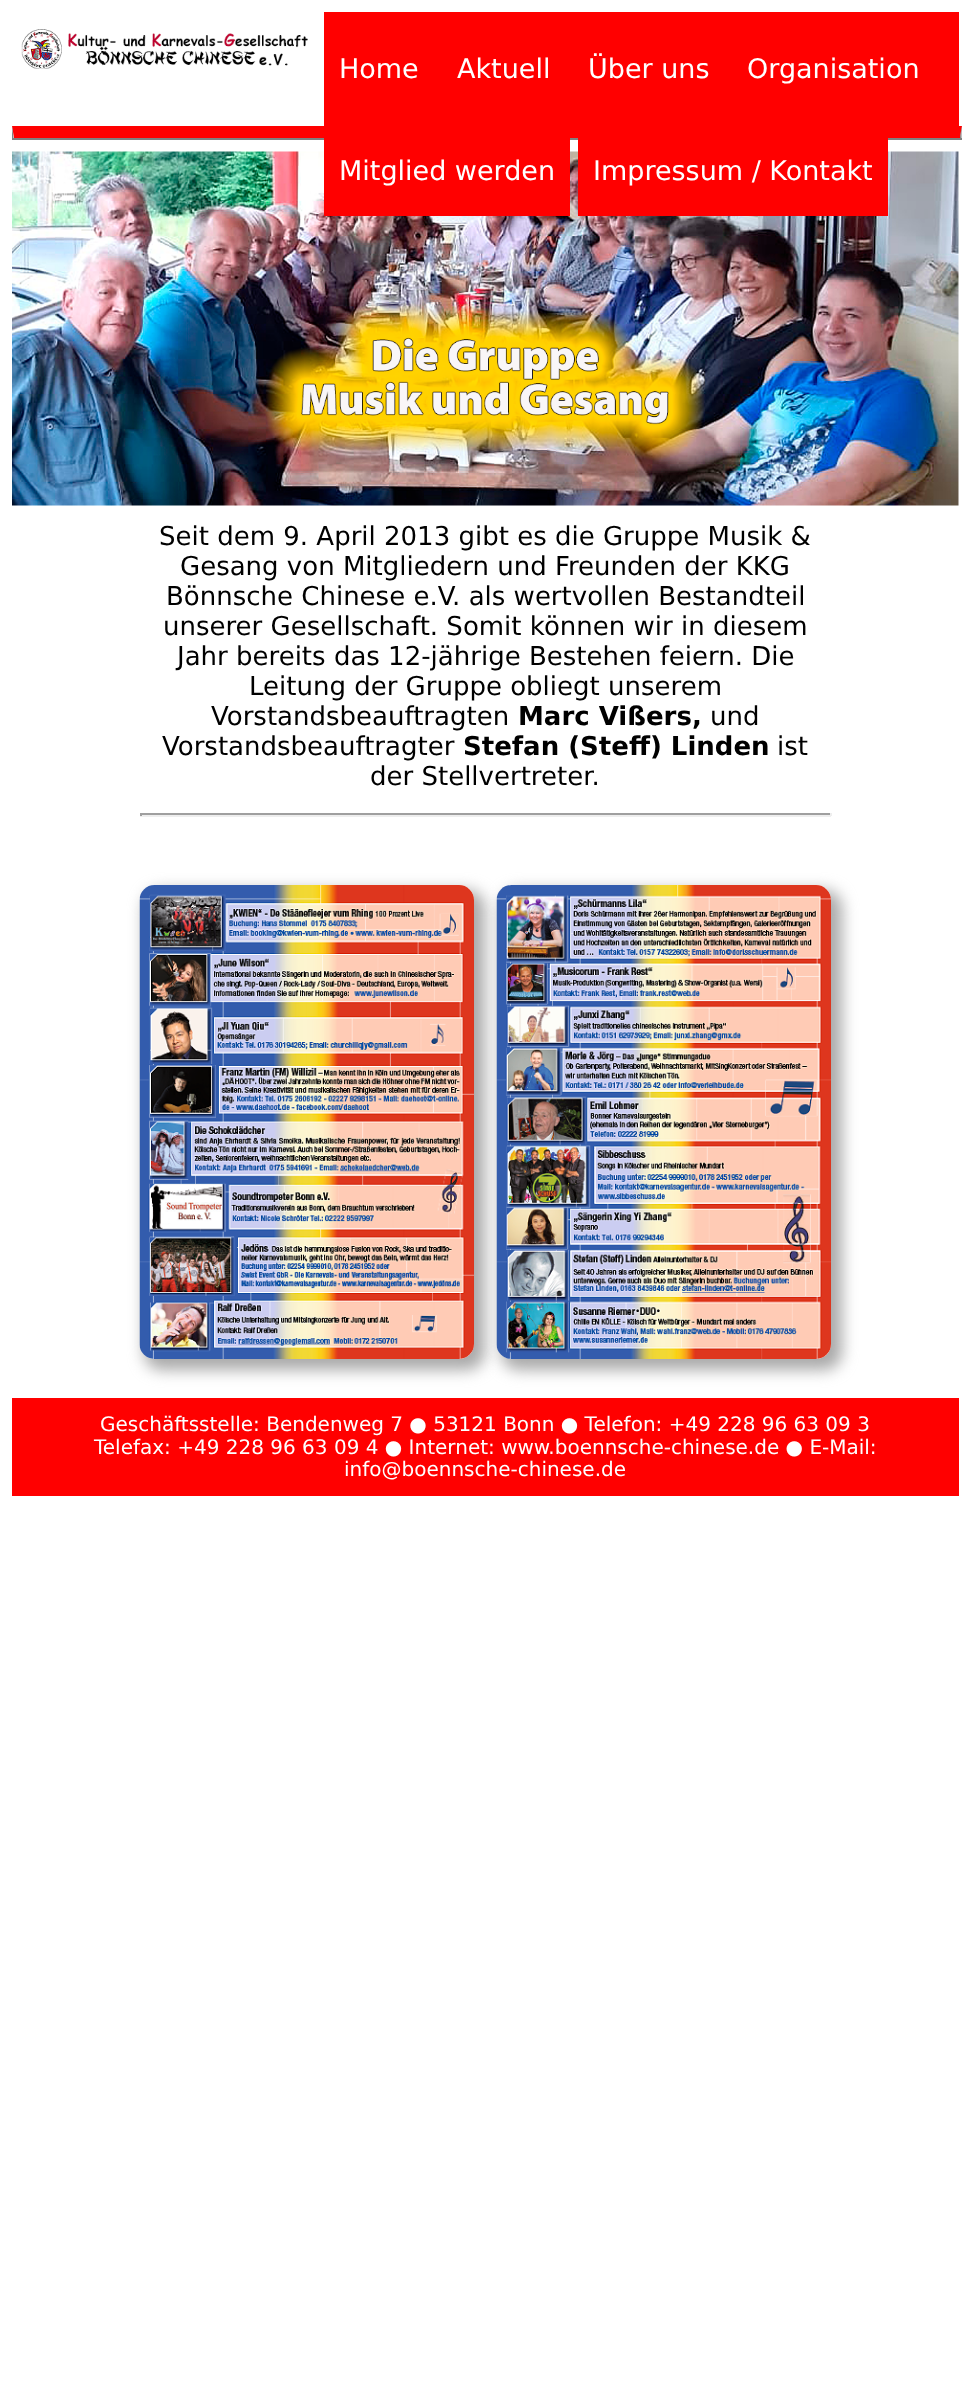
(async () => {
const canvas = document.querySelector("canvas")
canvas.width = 970
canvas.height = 2397
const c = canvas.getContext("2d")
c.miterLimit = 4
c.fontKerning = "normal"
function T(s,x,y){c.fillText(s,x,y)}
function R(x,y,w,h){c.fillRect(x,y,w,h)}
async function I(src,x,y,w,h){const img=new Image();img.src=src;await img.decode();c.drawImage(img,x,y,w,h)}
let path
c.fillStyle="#fff"
R(0,0,970,2397)
await I("1.png",21,29,287,40)
c.fillStyle="#f00"
R(324,12,635,114)
c.font="27px DejaVu Sans"
c.fillStyle="#fff"
T("Home",339,78)
T("Aktuell",457,78)
T("Über uns",588,78)
T("Organisation",747,78)
c.fillStyle="#f00"
path = new Path2D("M12 126h950l-2 12h-946z")
c.fill(path)
c.fillStyle="#808080"
path = new Path2D("M961.5 126v13.5l-1.5-1.5z")
c.fill(path)
R(12,138,950,2)
await I("2.png",12,151,947,355)
c.fillStyle="#f00"
R(324,138,246,78)
c.fillStyle="#fff"
T("Mitglied werden",339,180)
c.fillStyle="#f00"
R(578,138,310,78)
c.fillStyle="#fff"
T("Impressum / Kontakt",593,180)
c.fillStyle="#808080"
path = new Path2D("M12 139.5v-13.5l1.5 12z")
c.fill(path)
c.font="26px DejaVu Sans"
c.fillStyle="#000"
T("Seit dem 9. April 2013 gibt es die Gruppe Musik &",159,545)
T("Gesang von Mitgliedern und Freunden der KKG",180,575)
T("Bönnsche Chinese e.V. als wertvollen Bestandteil",166,605)
T("unserer Gesellschaft. Somit können wir in diesem",163,635)
T("Jahr bereits das 12-jährige Bestehen feiern. Die",177,665)
T("Leitung der Gruppe obliegt unserem",249,695)
T("Vorstandsbeauftragten",211,725)
c.font="bold 26px DejaVu Sans"
T("Marc Vißers,",518,725)
c.font="26px DejaVu Sans"
T("und",710,725)
T("Vorstandsbeauftragter",162,755)
c.font="bold 26px DejaVu Sans"
T("Stefan (Steff) Linden",463,755)
c.font="26px DejaVu Sans"
T("ist",777,755)
T("der Stellvertreter.",370,785)
c.fillStyle="#9f9f9f"
R(140,813,691,2)
c.fillStyle="#eee"
R(830,813,2,3)
R(140,815,691,2)
c.fillStyle="#9f9f9f"
R(140,813,2,3)
c.save()
path = new Path2D("M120 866h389v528h-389zm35 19h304c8.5 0 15 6.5 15 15v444c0 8.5-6.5 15-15 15h-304c-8.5 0-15-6.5-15-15v-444c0-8.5 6.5-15 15-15z")
c.clip(path,"evenodd")
c.fillStyle="#a9a9a9"
c.filter="blur(7.5px)"
c.beginPath()
c.roundRect(144,890,341,480,18)
c.fill()
c.filter="none"
c.restore()
await I("3.png",139,885,335,474)
c.save()
path = new Path2D("M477 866h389v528h-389zm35 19h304c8.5 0 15 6.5 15 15v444c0 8.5-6.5 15-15 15h-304c-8.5 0-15-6.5-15-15v-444c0-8.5 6.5-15 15-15z")
c.clip(path,"evenodd")
c.fillStyle="#a9a9a9"
c.filter="blur(7.5px)"
c.beginPath()
c.roundRect(501,890,341,480,18)
c.fill()
c.filter="none"
c.restore()
await I("4.png",496,885,335,474)
c.fillStyle="#f00"
R(12,1398,947,98)
c.font="20px DejaVu Sans"
c.fillStyle="#fff"
T("Geschäftsstelle: Bendenweg 7 ● 53121 Bonn ● Telefon: +49 228 96 63 09 3",100,1431)
T("Telefax: +49 228 96 63 09 4 ● Internet: www.boennsche-chinese.de ● E-Mail:",94,1454)
T("info@boennsche-chinese.de",344,1476)
})()
